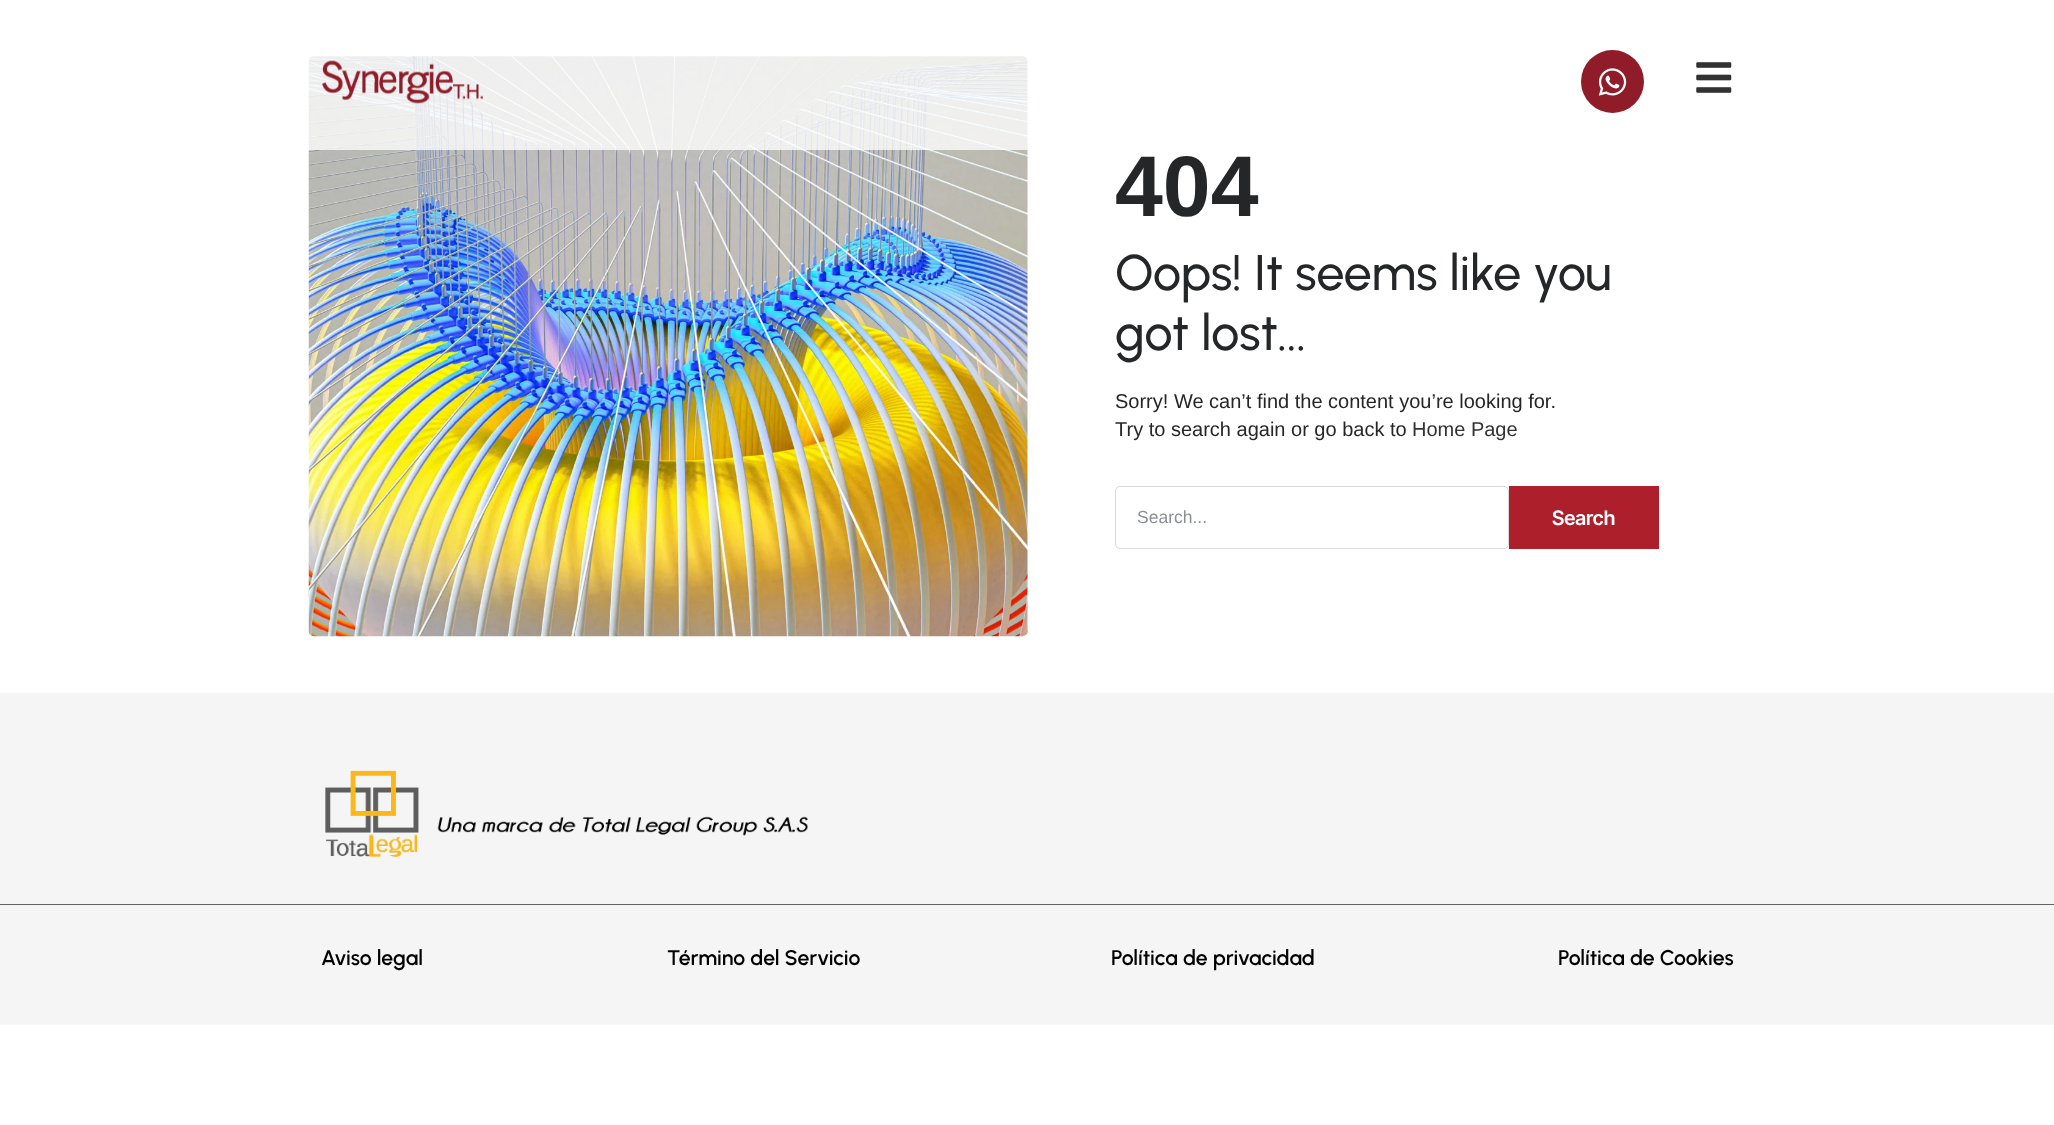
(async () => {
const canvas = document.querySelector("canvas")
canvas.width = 2054
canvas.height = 1125
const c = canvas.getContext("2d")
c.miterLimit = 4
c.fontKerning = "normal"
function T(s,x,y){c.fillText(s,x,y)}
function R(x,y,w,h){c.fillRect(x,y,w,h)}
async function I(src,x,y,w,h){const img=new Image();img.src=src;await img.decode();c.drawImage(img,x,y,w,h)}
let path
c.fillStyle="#fff"
R(0,0,2054,1125)
await I("4.png",308,56,720,581)
c.fillStyle="#ffffffc4"
path = new Path2D("M0 0h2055v100c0 27.5-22.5 50-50 50h-1955c-27.5 0-50-22.5-50-50z")
c.fill(path)
await I("1.png",322,60,161,44)
c.fillStyle="#8f1c28"
c.beginPath()
c.arc(1612.5,81.5,31.5,0,7)
c.fill()
await I("2.png",1598,68,29,28)
await I("3.png",1696,62,36,31)
c.font="bold 86px Liberation Sans"
c.fillStyle="#242627"
T("404",1115,216)
c.font="500 50px Urbanist"
T("Oops! It seems like you",1115,290)
T("got lost...",1115,350)
c.font="20px Liberation Sans"
T("Sorry! We can’t find the content you’re looking for.",1115,408)
T("Try to search again or go back to",1115,436)
c.fillStyle="#323232"
T("Home Page",1412,436)
c.beginPath()
c.roundRect(1115.5,486.5,393,62,4.5)
c.strokeStyle="#d9d9d9"
c.stroke()
c.font="17.5px Liberation Sans"
c.fillStyle="#8c8f93"
T("Search...",1137,523)
c.fillStyle="#ad1f2a"
R(1509,486,150,63)
c.font="600 20px Inter Tight"
c.fillStyle="#fff"
T("Search",1552,525)
c.fillStyle="#f5f5f5"
R(0,693,2054,211)
c.fillStyle="#626262"
R(0,904,2054,1)
await I("5.png",325,770,483,87)
c.fillStyle="#f5f5f5"
R(0,905,2054,120)
c.font="600 21.25px Urbanist"
c.fillStyle="#000"
T("Aviso legal",321,965)
T("Término del Servicio",667,965)
T("Política de privacidad",1111,965)
T("Política de Cookies",1558,965)
})()
